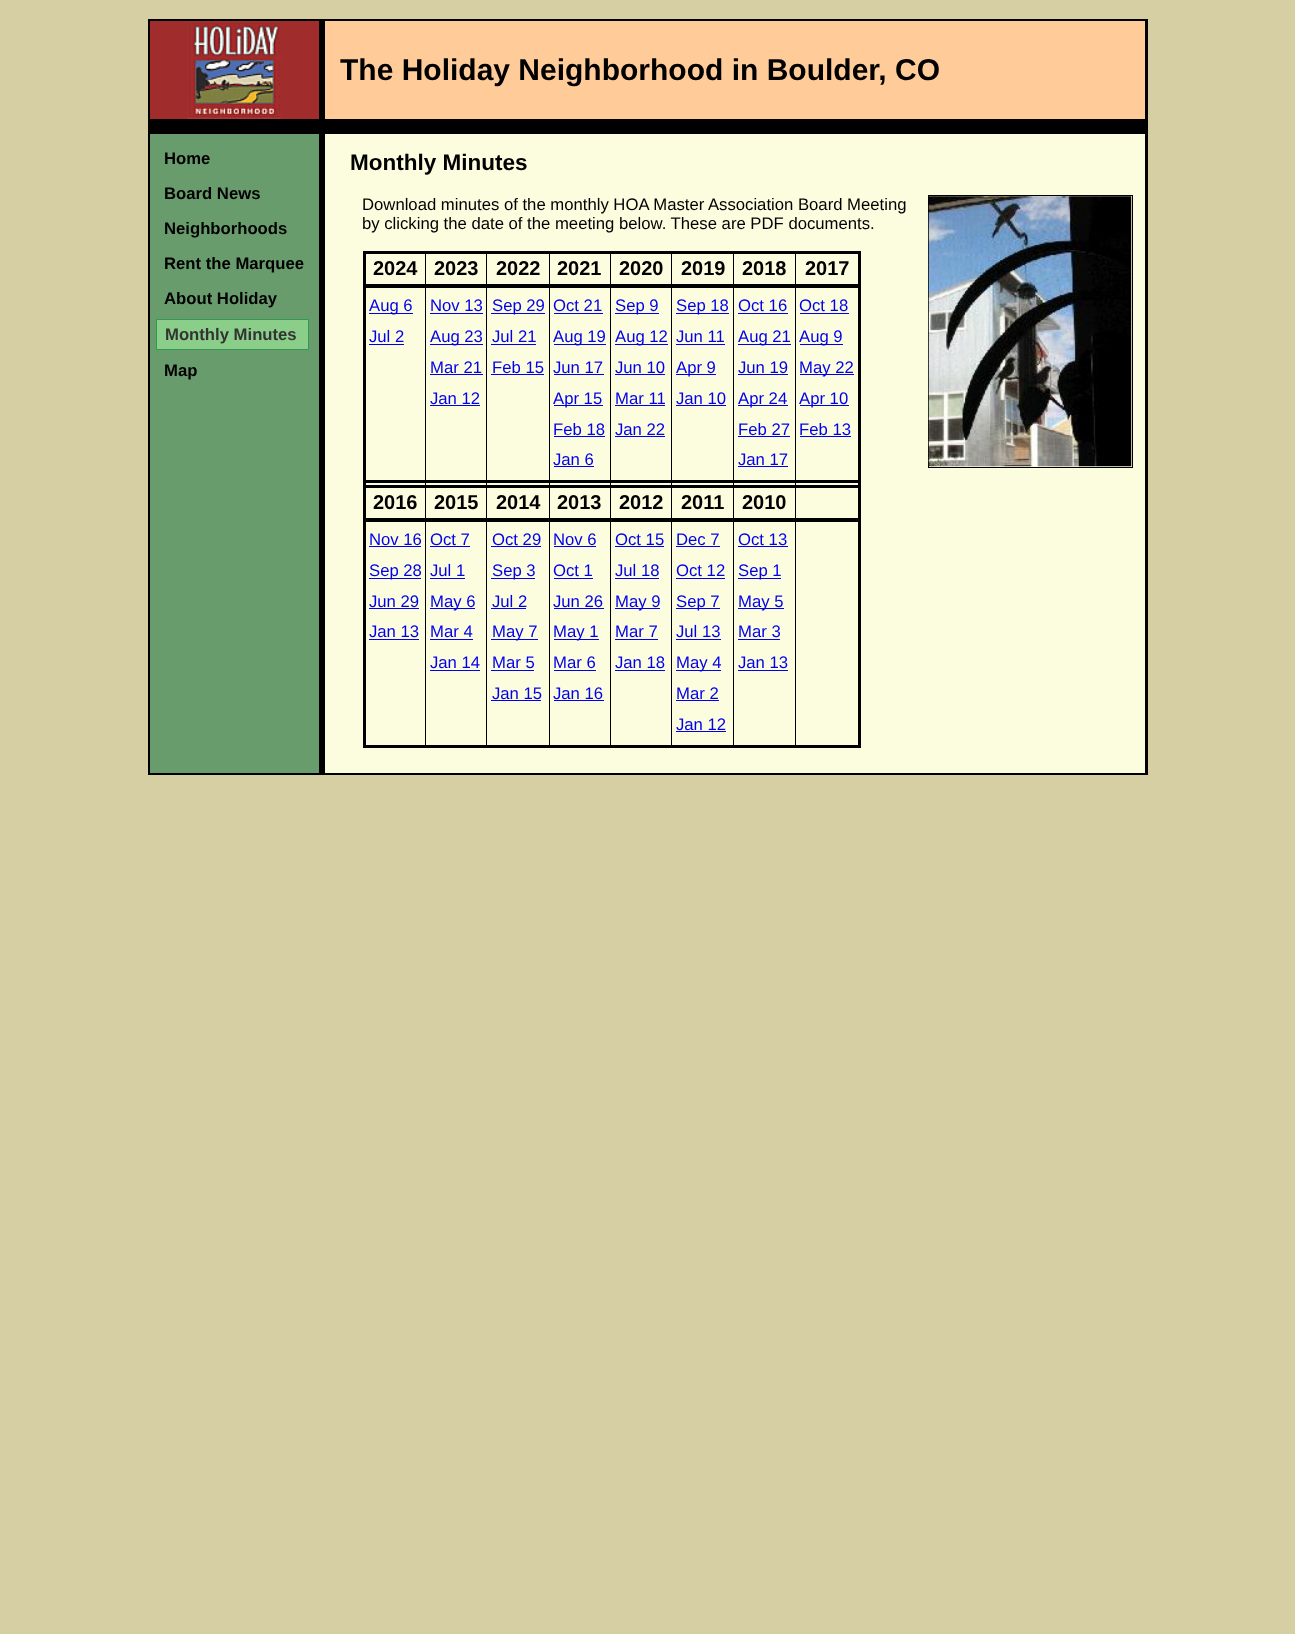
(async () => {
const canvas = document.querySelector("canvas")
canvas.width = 1295
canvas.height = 1634
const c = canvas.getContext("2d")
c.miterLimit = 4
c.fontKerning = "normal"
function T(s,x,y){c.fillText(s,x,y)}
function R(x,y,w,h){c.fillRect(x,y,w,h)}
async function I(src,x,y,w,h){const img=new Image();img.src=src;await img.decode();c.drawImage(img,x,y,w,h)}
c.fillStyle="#d6cfa3"
R(0,0,1295,1634)
c.strokeStyle="#000"
c.lineWidth=3
c.strokeRect(149.5,20.5,997,753)
c.fillStyle="#a12c2c"
R(150,21,169,98)
c.fillStyle="#000"
R(319,21,6,98)
R(151,119,994,15)
await I("1.png",187,21,94,98)
c.fillStyle="#fc9"
R(325,21,820,98)
c.font="bold 30px Liberation Sans"
c.fillStyle="#000"
T("The Holiday Neighborhood in Boulder, CO",340,80)
c.fillStyle="#699c6c"
R(150,134,169,639)
c.fillStyle="#000"
R(319,134,6,639)
c.font="bold 16.7px Liberation Sans"
T("Home",164,164)
T("Board News",164,199)
T("Neighborhoods",164,234)
T("Rent the Marquee",164,269)
T("About Holiday",164,304)
c.fillStyle="#8bce89"
c.beginPath()
c.rect(156.5,319.5,152,30)
c.fill()
c.strokeStyle="#339950"
c.lineWidth=1
c.stroke()
c.fillStyle="#333"
T("Monthly Minutes",165,340)
c.fillStyle="#000"
T("Map",164,376)
c.fillStyle="#fcfcde"
R(325,134,820,639)
c.font="bold 22.5px Liberation Sans"
c.fillStyle="#000"
T("Monthly Minutes",350,170)
c.font="16.7px Liberation Sans"
T("Download minutes of the monthly HOA Master Association Board Meeting",362,210)
c.strokeStyle="#000"
c.strokeRect(928.5,195.5,204,272)
await I("2.png",928,196,204,271)
T("by clicking the date of the meeting below. These are PDF documents.",362,229)
c.lineWidth=3
c.strokeRect(364.5,252.5,495,494)
R(425,254,1,226)
R(365,284,61,4)
c.font="bold 20px Liberation Sans"
T("2024",373,275)
R(486,254,1,226)
R(426,284,62,4)
T("2023",434,275)
R(549,254,1,226)
R(488,284,62,4)
T("2022",496,275)
R(610,254,1,226)
R(550,284,61,4)
T("2021",557,275)
R(671,254,1,226)
R(611,284,62,4)
T("2020",619,275)
R(733,254,1,226)
R(673,284,61,4)
T("2019",681,275)
R(795,254,1,226)
R(734,284,125,4)
T("2018",742,275)
T("2017",805,275)
c.fillStyle="#00e"
R(369,313,44,1)
c.font="16.7px Liberation Sans"
T("Aug 6",369,311)
T("Jul 2",369,342)
R(369,344,35,1)
T("Nov 13",430,311)
R(430,313,53,1)
R(430,344,53,1)
T("Aug 23",430,342)
T("Mar 21",430,373)
R(430,374,53,1)
T("Jan 12",430,404)
R(430,405,50,1)
R(491,313,54,1)
T("Sep 29",492,311)
T("Jul 21",492,342)
R(491,344,45,1)
T("Feb 15",492,373)
R(491,374,53,1)
T("Oct 21",553,311)
R(554,313,49,1)
R(554,344,52,1)
T("Aug 19",553,342)
T("Jun 17",553,373)
R(554,374,50,1)
R(554,405,49,1)
T("Apr 15",553,404)
T("Feb 18",553,435)
R(554,436,51,1)
T("Jan 6",553,465)
R(554,466,40,1)
R(615,313,44,1)
T("Sep 9",615,311)
R(615,344,53,1)
T("Aug 12",615,342)
T("Jun 10",615,373)
R(615,374,50,1)
T("Mar 11",615,404)
R(615,405,50,1)
T("Jan 22",615,435)
R(615,436,50,1)
R(676,313,53,1)
T("Sep 18",676,311)
T("Jun 11",676,342)
R(676,344,49,1)
R(676,374,40,1)
T("Apr 9",676,373)
T("Jan 10",676,404)
R(676,405,50,1)
T("Oct 16",738,311)
R(738,313,50,1)
R(738,344,53,1)
T("Aug 21",738,342)
T("Jun 19",738,373)
R(738,374,50,1)
R(738,405,50,1)
T("Apr 24",738,404)
T("Feb 27",738,435)
R(738,436,52,1)
T("Jan 17",738,465)
R(738,466,50,1)
T("Oct 18",799,311)
R(800,313,49,1)
R(800,344,43,1)
T("Aug 9",799,342)
R(800,374,54,1)
T("May 22",799,373)
R(800,405,49,1)
T("Apr 10",799,404)
T("Feb 13",799,435)
R(800,436,51,1)
c.fillStyle="#000"
R(365,480,494,3)
R(365,485,494,3)
R(425,480,1,41)
R(365,518,61,4)
c.font="bold 20px Liberation Sans"
T("2016",373,509)
R(486,480,1,41)
R(426,518,62,4)
T("2015",434,509)
R(549,480,1,41)
R(488,518,62,4)
T("2014",496,509)
R(610,480,1,41)
R(550,518,61,4)
T("2013",557,509)
R(671,480,1,41)
R(611,518,62,4)
T("2012",619,509)
R(733,480,1,41)
R(673,518,61,4)
T("2011",681,509)
R(795,480,1,41)
R(734,518,125,4)
T("2010",742,509)
R(425,521,1,224)
c.font="16.7px Liberation Sans"
c.fillStyle="#00e"
T("Nov 16",369,545)
R(369,546,52,1)
R(369,578,52,1)
T("Sep 28",369,576)
T("Jun 29",369,607)
R(369,608,50,1)
T("Jan 13",369,637)
R(369,639,50,1)
c.fillStyle="#000"
R(486,521,1,224)
c.fillStyle="#00e"
T("Oct 7",430,545)
R(430,546,40,1)
T("Jul 1",430,576)
R(430,578,35,1)
R(430,608,45,1)
T("May 6",430,607)
T("Mar 4",430,637)
R(430,639,43,1)
T("Jan 14",430,668)
R(430,670,50,1)
c.fillStyle="#000"
R(549,521,1,224)
c.fillStyle="#00e"
T("Oct 29",492,545)
R(491,546,50,1)
R(491,578,44,1)
T("Sep 3",492,576)
T("Jul 2",492,607)
R(491,608,35,1)
R(491,639,47,1)
T("May 7",492,637)
T("Mar 5",492,668)
R(491,670,43,1)
T("Jan 15",492,699)
R(491,700,50,1)
c.fillStyle="#000"
R(610,521,1,224)
c.fillStyle="#00e"
T("Nov 6",553,545)
R(554,546,42,1)
T("Oct 1",553,576)
R(554,578,39,1)
T("Jun 26",553,607)
R(554,608,50,1)
R(554,639,45,1)
T("May 1",553,637)
T("Mar 6",553,668)
R(554,670,42,1)
T("Jan 16",553,699)
R(554,700,50,1)
c.fillStyle="#000"
R(671,521,1,224)
c.fillStyle="#00e"
T("Oct 15",615,545)
R(615,546,49,1)
T("Jul 18",615,576)
R(615,578,44,1)
R(615,608,45,1)
T("May 9",615,607)
T("Mar 7",615,637)
R(615,639,43,1)
T("Jan 18",615,668)
R(615,670,50,1)
c.fillStyle="#000"
R(733,521,1,224)
c.fillStyle="#00e"
T("Dec 7",676,545)
R(676,546,44,1)
T("Oct 12",676,576)
R(676,578,49,1)
R(676,608,44,1)
T("Sep 7",676,607)
T("Jul 13",676,637)
R(676,639,45,1)
R(676,670,45,1)
T("May 4",676,668)
T("Mar 2",676,699)
R(676,700,43,1)
T("Jan 12",676,730)
R(676,731,50,1)
c.fillStyle="#000"
R(795,521,1,224)
c.fillStyle="#00e"
T("Oct 13",738,545)
R(738,546,50,1)
R(738,578,43,1)
T("Sep 1",738,576)
R(738,608,46,1)
T("May 5",738,607)
T("Mar 3",738,637)
R(738,639,42,1)
T("Jan 13",738,668)
R(738,670,50,1)
})()
